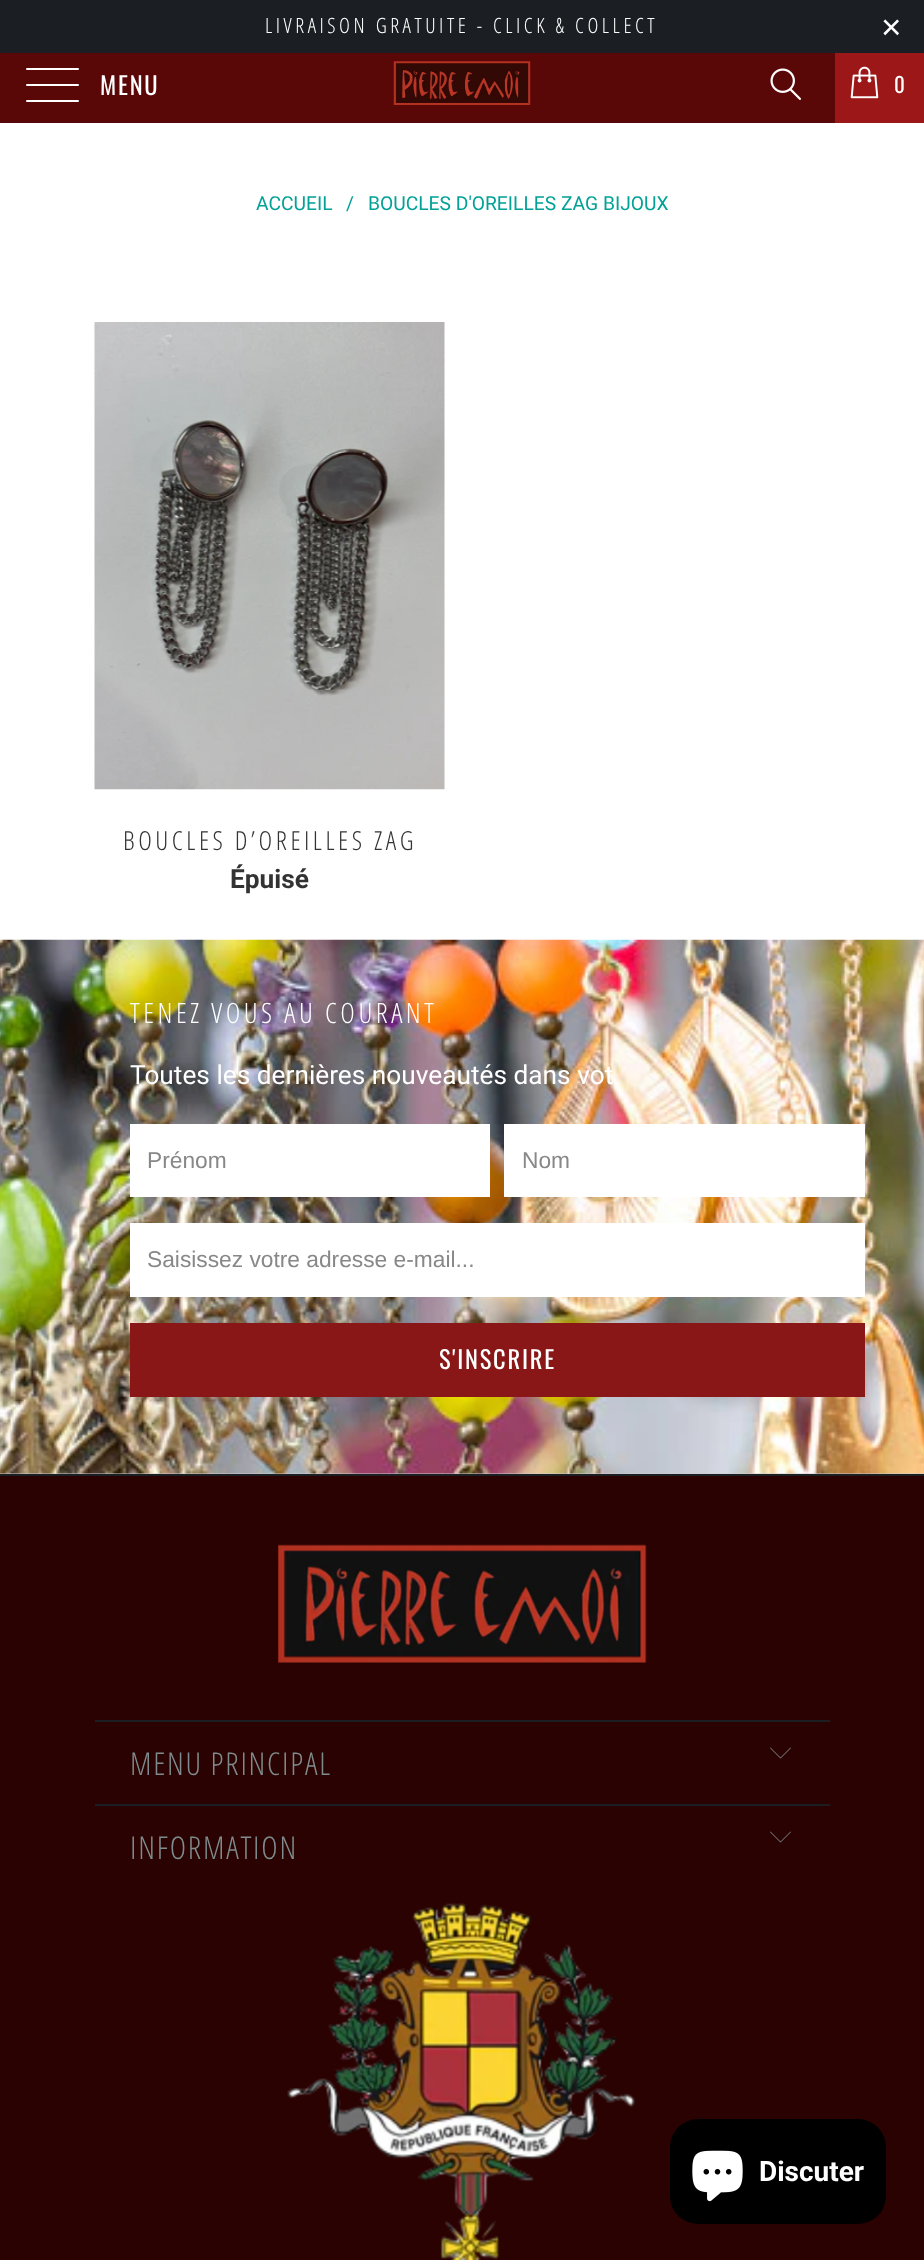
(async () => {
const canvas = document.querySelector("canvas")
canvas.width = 924
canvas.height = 2260
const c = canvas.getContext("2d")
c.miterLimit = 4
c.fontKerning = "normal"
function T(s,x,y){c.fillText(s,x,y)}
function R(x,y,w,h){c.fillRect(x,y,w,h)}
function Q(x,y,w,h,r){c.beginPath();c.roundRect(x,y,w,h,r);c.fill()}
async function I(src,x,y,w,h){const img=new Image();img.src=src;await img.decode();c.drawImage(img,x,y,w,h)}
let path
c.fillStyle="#fff"
R(0,0,924,2260)
c.fillStyle="#1b1f23"
R(0,0,924,53)
c.letterSpacing="3.5px"
c.font="300 21px Open Sans Condensed"
c.fillStyle="#fff"
T("LIVRAISON GRATUITE - CLICK & COLLECT",265,33)
c.font="35px Liberation Sans"
T("×",881,39)
c.fillStyle="#590707"
R(0,53,835,70)
c.fillStyle="#fff"
Q(26,68,53,2,1)
Q(26,84,53,2,1)
Q(26,100,53,2,1)
c.letterSpacing="1.75px"
c.font="24.5px Oswald"
T("MENU",100,95)
await I("1.png",393,61,138,44)
await I("2.png",770,68,31,32)
c.fillStyle="#9c1717"
R(835,53,89,70)
await I("3.png",850,66,29,33)
c.font="21px Oswald"
c.fillStyle="#fff"
T("0",894,93)
c.letterSpacing="0px"
c.font="19.25px Roboto"
c.fillStyle="#03a196"
T("ACCUEIL",256,210)
T("/",346,210)
T("BOUCLES D'OREILLES ZAG BIJOUX",368,210)
await I("4.png",94,322,351,468)
c.letterSpacing="3.5px"
c.font="300 26.25px Open Sans Condensed"
c.fillStyle="#333"
T("BOUCLES D’OREILLES ZAG",123,850)
c.letterSpacing="0px"
c.font="bold 26.25px Roboto"
T("Épuisé",230,888)
c.fillStyle="#ccc"
R(0,1473,924,1)
await I("5.png",0,939,924,535)
c.letterSpacing="3.5px"
c.font="300 28px Open Sans Condensed"
c.fillStyle="#fff"
T("TENEZ VOUS AU COURANT",130,1023)
c.letterSpacing="0px"
c.font="26.25px Roboto"
T("Toutes les dernières nouveautés dans vot",130,1084)
R(130,1124,360,73)
c.font="22.75px Liberation Sans"
c.fillStyle="#888"
T("Prénom",147,1168)
c.fillStyle="#fff"
R(504,1124,361,73)
c.fillStyle="#888"
T("Nom",522,1168)
c.fillStyle="#fff"
R(130,1223,735,74)
c.fillStyle="#888"
T("Saisissez votre adresse e-mail...",147,1267)
c.fillStyle="#891717"
R(130,1323,735,74)
c.letterSpacing="1.75px"
c.font="24.5px Oswald"
c.fillStyle="#fff"
T("S'INSCRIRE",439,1369)
c.fillStyle="#2b0202"
R(0,1476,924,784)
c.fillStyle="#1b1f23"
R(0,1474,924,2)
await I("6.png",278,1544,369,119)
R(95,1720,735,2)
c.font="300 31.5px Open Sans Condensed"
c.fillStyle="#7f8c8d"
T("MENU PRINCIPAL",130,1775)
path = new Path2D("M780.5 1758.5l-10.5-10.5l.5-.5l10 10l10-10l.5 .5z")
c.fill(path)
c.fillStyle="#1b1f23"
R(95,1804,735,2)
c.fillStyle="#7f8c8d"
T("INFORMATION",130,1859)
path = new Path2D("M780.5 1842.5l-10.5-10.5l.5-.5l10 10l10-10l.5 .5z")
c.fill(path)
await I("7.png",287,1903,348,357)
c.fillStyle="#000"
Q(670,2119,216,105,28)
await I("8.png",692,2150,51,52)
c.letterSpacing="0px"
c.font="bold 28px Roboto"
c.fillStyle="#fff"
T("Discuter",759,2181)
})()
